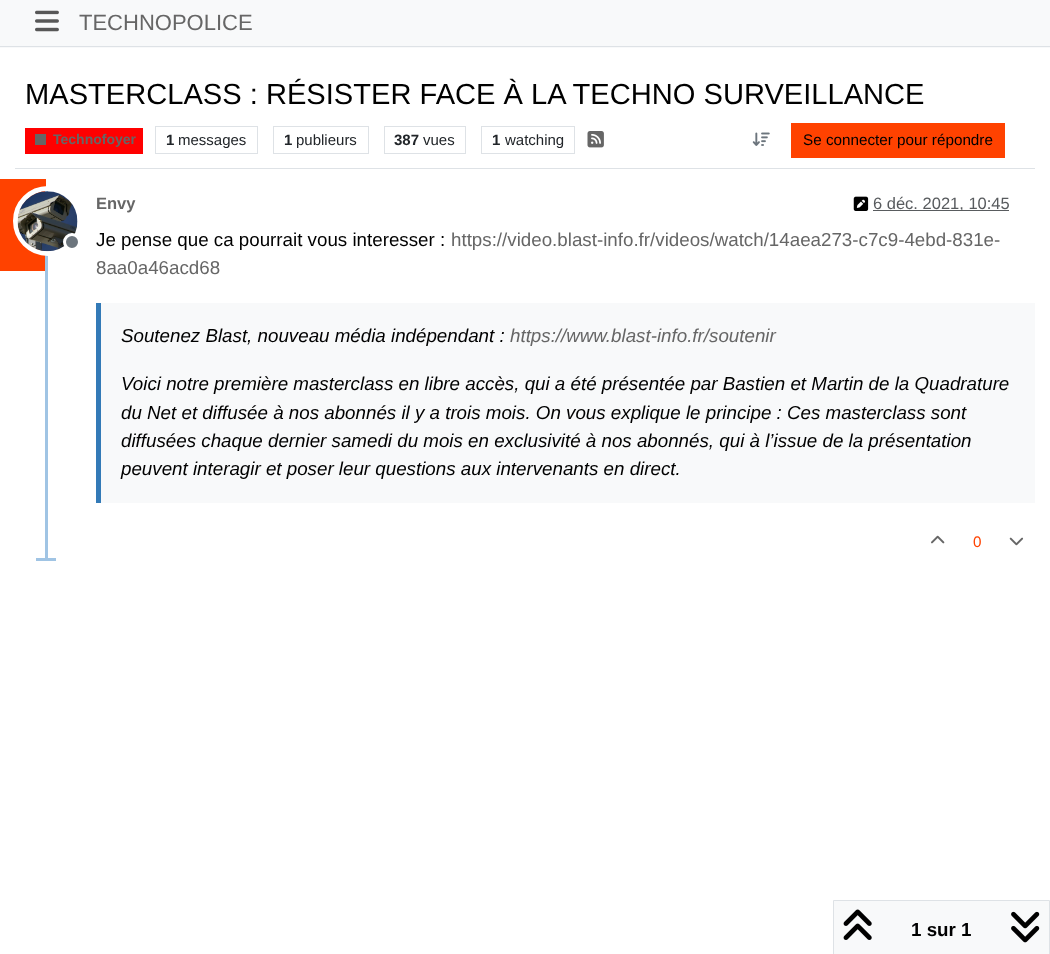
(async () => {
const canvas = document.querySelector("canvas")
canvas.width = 1050
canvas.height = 954
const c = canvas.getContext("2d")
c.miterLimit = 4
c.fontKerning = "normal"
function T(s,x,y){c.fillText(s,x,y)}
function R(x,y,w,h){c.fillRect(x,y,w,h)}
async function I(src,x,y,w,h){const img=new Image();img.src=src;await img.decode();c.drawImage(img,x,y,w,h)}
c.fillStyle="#fff"
R(0,0,1050,954)
c.fillStyle="#ff4200"
R(0,179,46,92)
c.fillStyle="#f8f9fa"
R(0,0,1050,48)
c.fillStyle="#dee2e6"
R(0,46,1050,1)
await I("1.png",35,10,24,22)
c.font="22px Liberation Sans"
c.fillStyle="#666"
T("TECHNOPOLICE",79,30)
c.fillStyle="#dee2e6"
R(15,168,1020,1)
c.font="29.1px Liberation Sans"
c.fillStyle="#000"
T("MASTERCLASS : RÉSISTER FACE À LA TECHNO SURVEILLANCE",25,104)
c.fillStyle="#f00"
R(25,128,118,26)
c.fillStyle="#666"
R(35,134,11,11)
c.font="bold 14px Liberation Sans"
T("Technofoyer",53,144)
c.strokeStyle="#dee2e6"
c.strokeRect(155.5,126.5,102,27)
c.font="bold 15px Liberation Sans"
c.fillStyle="#212529"
T("1",166,145)
c.font="15px Liberation Sans"
T("messages",178,145)
c.strokeRect(273.5,126.5,95,27)
c.font="bold 15px Liberation Sans"
T("1",284,145)
c.font="15px Liberation Sans"
T("publieurs",296,145)
c.strokeRect(384.5,126.5,81,27)
c.font="bold 15px Liberation Sans"
T("387",394,145)
c.font="15px Liberation Sans"
T("vues",423,145)
c.strokeRect(481.5,126.5,93,27)
c.font="bold 15px Liberation Sans"
T("1",492,145)
c.font="15px Liberation Sans"
T("watching",505,145)
await I("2.png",587,131,17,17)
await I("3.png",752,132,18,14)
c.fillStyle="#ff4200"
R(791,123,214,35)
c.font="15.25px Liberation Sans"
c.fillStyle="#000"
T("Se connecter pour répondre",803,145)
c.fillStyle="#a0c4e4"
R(45,189,3,371)
c.beginPath()
c.arc(48,221,32.5,0,7)
c.strokeStyle="#fff"
c.lineWidth=5
c.stroke()
await I("4.png",17,191,61,61)
c.fillStyle="#6c757d"
c.beginPath()
c.arc(72,242,7.5,0,7)
c.fill()
c.lineWidth=3
c.stroke()
c.font="bold 16.5px Liberation Sans"
c.fillStyle="#666"
T("Envy",96,209)
await I("5.png",853,196,16,15)
c.fillStyle="#595c5f"
R(873,210,136,1)
c.font="16.5px Liberation Sans"
c.fillStyle="#585b5e"
T("6 déc. 2021, 10:45",873,209)
c.font="18.75px Liberation Sans"
c.fillStyle="#000"
T("Je pense que ca pourrait vous interesser :",96,246)
c.fillStyle="#666"
T("https://video.blast-info.fr/videos/watch/14aea273-c7c9-4ebd-831e-",451,246)
T("8aa0a46acd68",96,274)
c.fillStyle="#f8f9fa"
R(101,303,934,200)
c.fillStyle="#337ab7"
R(96,303,5,200)
c.font="italic 18.75px Liberation Sans"
c.fillStyle="#000"
T("Soutenez Blast, nouveau média indépendant :",121,342)
c.fillStyle="#666"
T("https://www.blast-info.fr/soutenir",510,342)
c.fillStyle="#000"
T("Voici notre première masterclass en libre accès, qui a été présentée par Bastien et Martin de la Quadrature",121,390)
T("du Net et diffusée à nos abonnés il y a trois mois. On vous explique le principe : Ces masterclass sont",121,419)
T("diffusées chaque dernier samedi du mois en exclusivité à nos abonnés, qui à l’issue de la présentation",121,447)
T("peuvent interagir et poser leur questions aux intervenants en direct.",121,475)
await I("6.png",931,535,14,9)
c.font="15.25px Liberation Sans"
c.fillStyle="#ff4200"
T("0",973,547)
await I("7.png",1009,537,15,9)
c.fillStyle="#a0c4e4"
R(36,558,20,3)
c.fillStyle="#f8f9fa"
c.beginPath()
c.rect(833.5,900.5,216,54)
c.fill()
c.strokeStyle="#dee2e6"
c.lineWidth=1
c.stroke()
await I("8.png",843,909,29,31)
c.font="bold 18.75px Liberation Sans"
c.fillStyle="#000"
T("1 sur 1",911,936)
await I("9.png",1011,911,29,32)
})()
